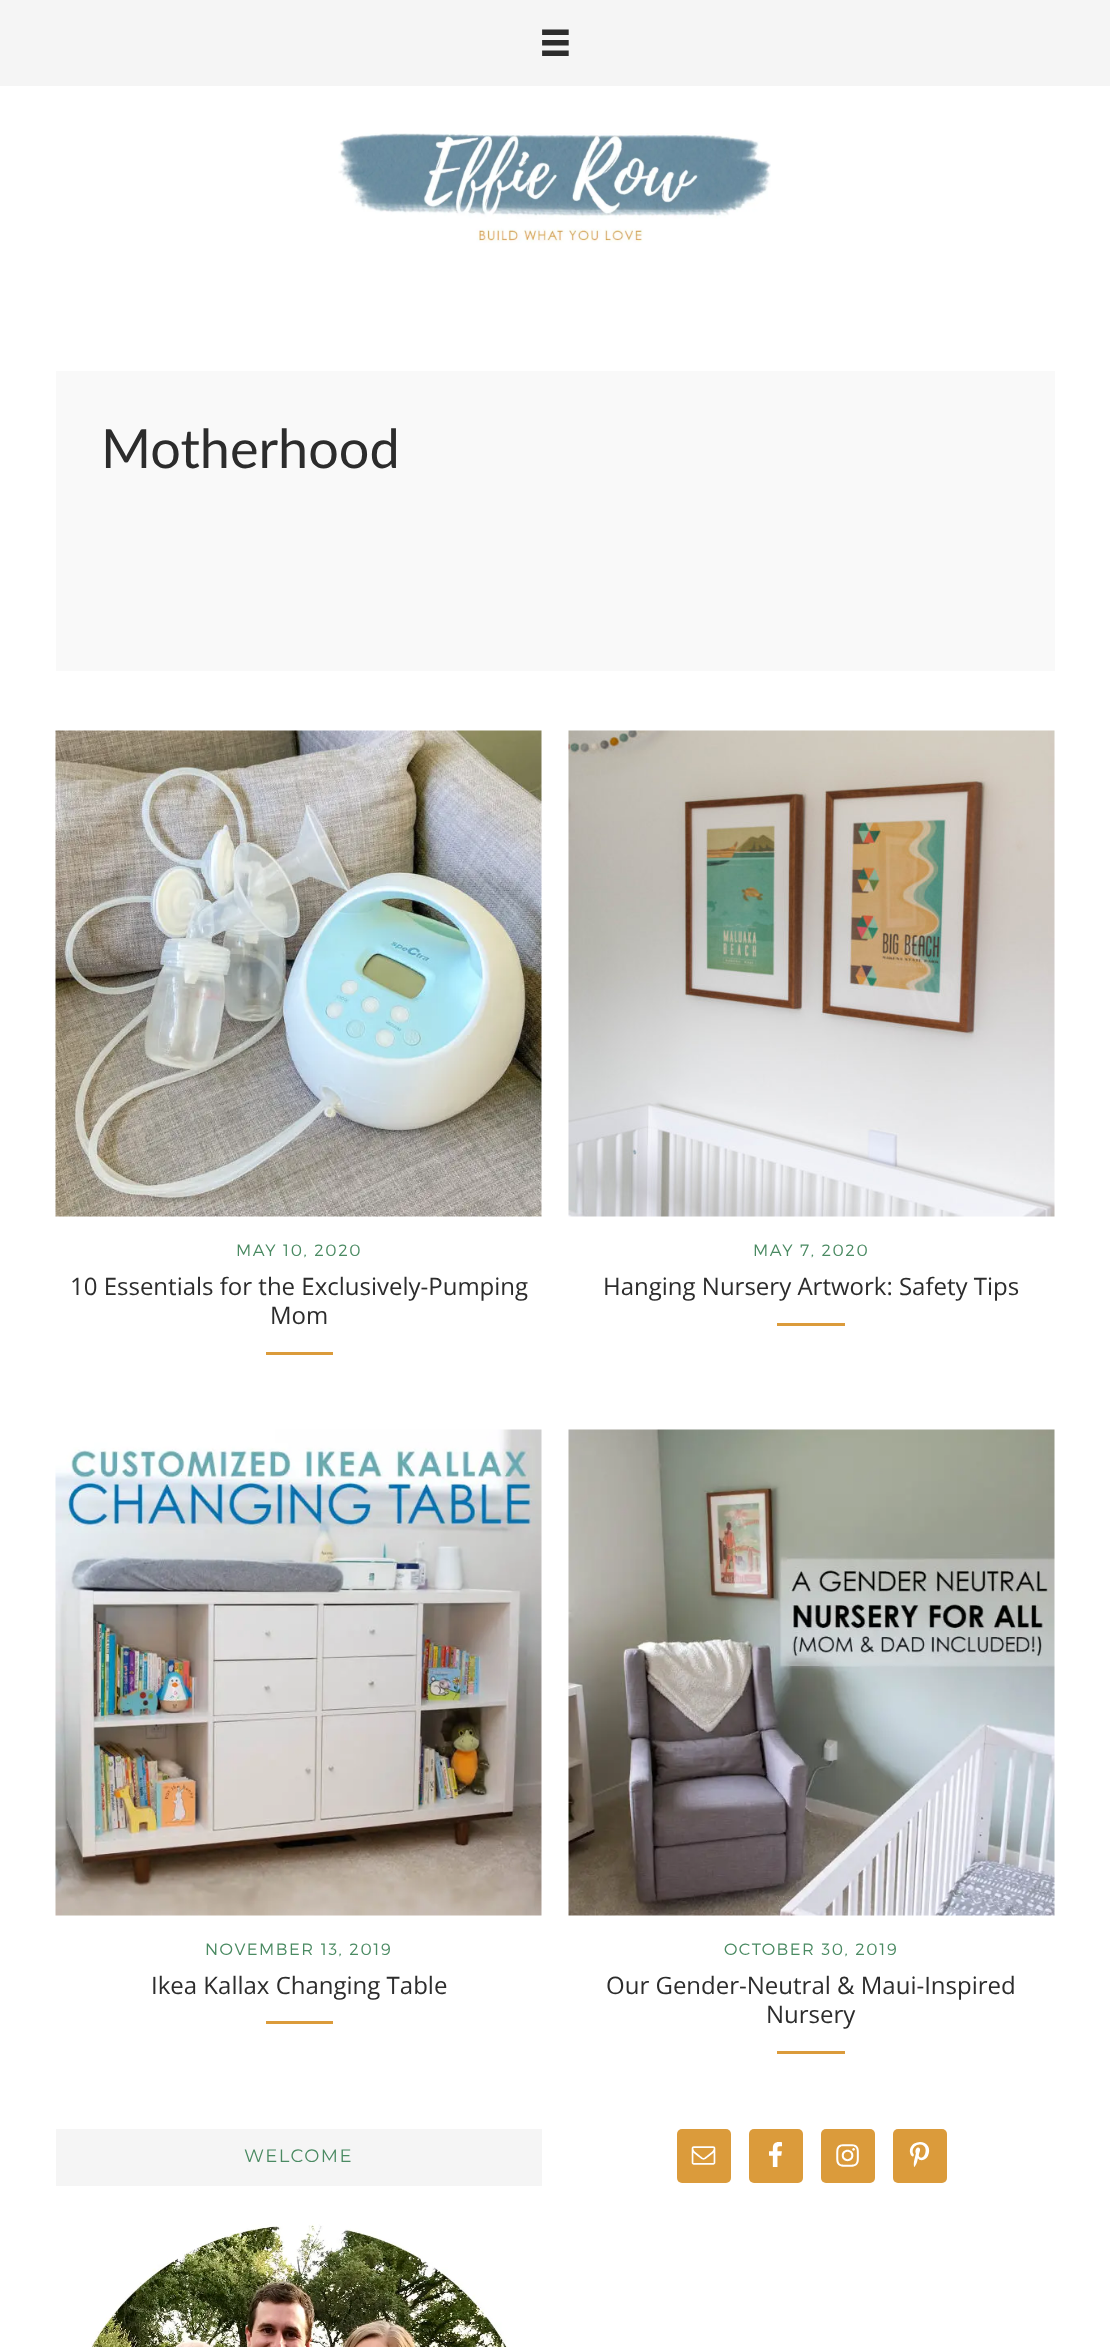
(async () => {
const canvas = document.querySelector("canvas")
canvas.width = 1110
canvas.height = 2347
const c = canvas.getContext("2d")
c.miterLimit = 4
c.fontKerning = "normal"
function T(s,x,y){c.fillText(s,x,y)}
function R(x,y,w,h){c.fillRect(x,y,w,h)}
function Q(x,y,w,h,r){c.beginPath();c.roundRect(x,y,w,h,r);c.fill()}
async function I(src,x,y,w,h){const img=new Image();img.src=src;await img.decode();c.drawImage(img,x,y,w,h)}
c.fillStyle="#fff"
R(0,0,1110,2347)
c.fillStyle="#f5f5f5"
R(0,0,1110,86)
c.font="bold 60px Lato"
c.fillStyle="#2c2c2c"
T("≡",538,63)
await I("1.png",338,133,433,110)
c.fillStyle="#f9f9f9"
R(56,371,999,300)
c.font="54px Lato"
c.fillStyle="#2c2c2c"
T("Motherhood",101,468)
await I("2.png",55,730,487,487)
c.letterSpacing="1.5px"
c.font="300 16.5px Montserrat"
c.fillStyle="#4a8a62"
T("MAY 10, 2020",236,1256)
c.letterSpacing="0px"
c.font="24px Open Sans"
c.fillStyle="#2c2c2c"
T("10 Essentials for the Exclusively-Pumping",70,1295)
T("Mom",270,1324)
c.fillStyle="#db9b3b"
R(266,1352,67,3)
await I("3.png",568,730,487,487)
c.letterSpacing="1.5px"
c.font="300 16.5px Montserrat"
c.fillStyle="#4a8a62"
T("MAY 7, 2020",753,1256)
c.letterSpacing="0px"
c.font="24px Open Sans"
c.fillStyle="#2c2c2c"
T("Hanging Nursery Artwork: Safety Tips",603,1295)
c.fillStyle="#db9b3b"
R(777,1323,68,3)
await I("4.png",55,1429,487,487)
c.letterSpacing="1.5px"
c.font="300 16.5px Montserrat"
c.fillStyle="#4a8a62"
T("NOVEMBER 13, 2019",205,1955)
c.letterSpacing="0px"
c.font="24px Open Sans"
c.fillStyle="#2c2c2c"
T("Ikea Kallax Changing Table",151,1994)
c.fillStyle="#db9b3b"
R(266,2021,67,3)
await I("5.png",568,1429,487,487)
c.letterSpacing="1.5px"
c.font="300 16.5px Montserrat"
c.fillStyle="#4a8a62"
T("OCTOBER 30, 2019",724,1955)
c.letterSpacing="0px"
c.font="24px Open Sans"
c.fillStyle="#2c2c2c"
T("Our Gender-Neutral & Maui-Inspired",606,1994)
T("Nursery",766,2023)
c.fillStyle="#db9b3b"
R(777,2051,68,3)
c.fillStyle="#f5f5f5"
R(56,2129,486,57)
c.letterSpacing="1.5px"
c.font="100 18px Montserrat"
c.fillStyle="#4a8a62"
T("WELCOME",244,2162)
await I("6.png",91,2224,417,123)
c.fillStyle="#db9b3b"
Q(677,2129,54,54,5)
await I("7.png",691,2146,25,19)
Q(749,2129,54,54,5)
await I("8.png",769,2142,13,25)
Q(821,2129,54,54,5)
await I("9.png",836,2144,23,23)
Q(893,2129,54,54,5)
await I("10.png",909,2142,21,25)
})()
